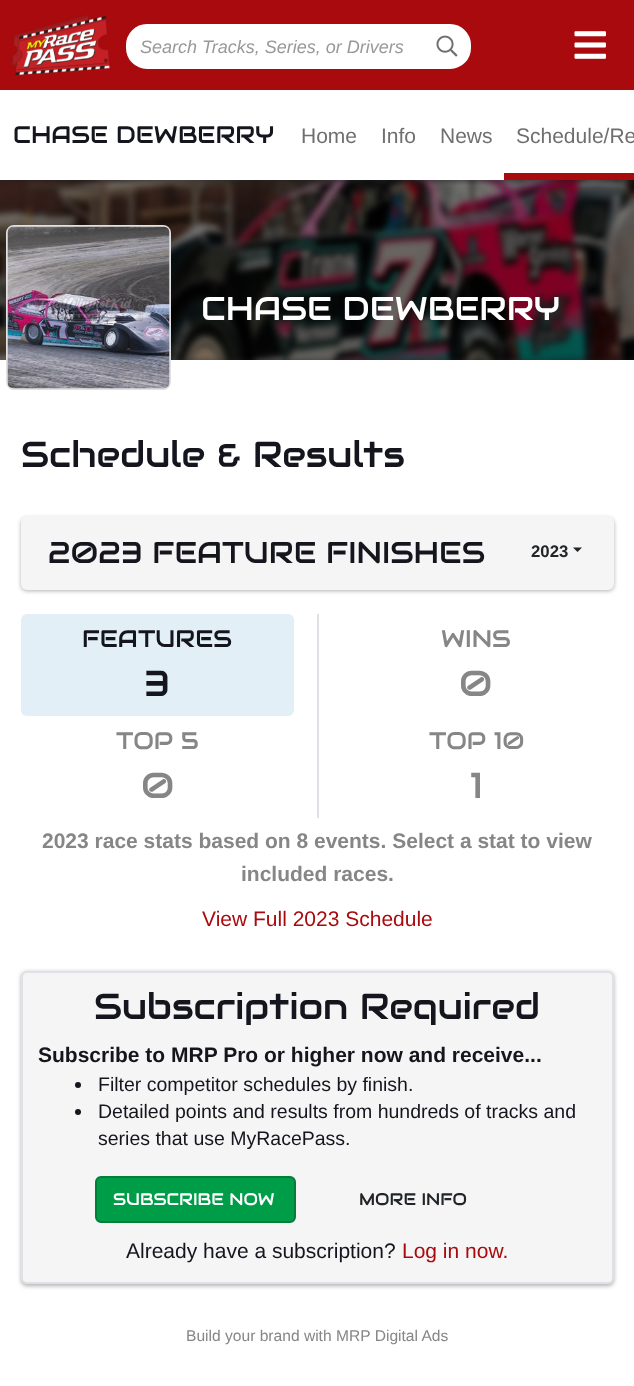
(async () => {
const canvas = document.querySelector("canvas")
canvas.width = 634
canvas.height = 1386
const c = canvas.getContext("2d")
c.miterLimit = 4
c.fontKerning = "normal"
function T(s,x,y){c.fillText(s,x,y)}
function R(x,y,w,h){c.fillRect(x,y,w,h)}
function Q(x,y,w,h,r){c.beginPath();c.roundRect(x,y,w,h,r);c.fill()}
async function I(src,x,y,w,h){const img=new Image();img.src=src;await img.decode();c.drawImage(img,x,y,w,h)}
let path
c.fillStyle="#fff"
R(0,0,634,1386)
await I("4.png",0,180,634,180)
c.save()
c.beginPath()
c.rect(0,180,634,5)
c.clip()
c.fillStyle="#1f1f2180"
c.filter="blur(2px)"
c.beginPath()
c.rect(0,92,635,90)
c.fill()
c.filter="none"
c.restore()
c.fillStyle="#a90a0e"
R(0,0,634,90)
await I("1.png",12,15,98,61)
c.fillStyle="#fff"
c.beginPath()
c.roundRect(127,25,343,43,20)
c.fill()
c.strokeStyle="#fff"
c.lineWidth=2
c.stroke()
c.font="italic 18px Liberation Sans"
c.fillStyle="#999"
T("Search Tracks, Series, or Drivers",140,53)
await I("2.png",436,35,22,22)
await I("3.png",574,31,32,28)
c.font="24px Audiowide"
c.fillStyle="#15151e"
T("CHASE DEWBERRY",13,143)
c.font="21px Liberation Sans"
c.fillStyle="#6f6f6f"
T("Home",301,143)
T("Info",381,143)
T("News",440,143)
T("Schedule/Re",516,143)
c.fillStyle="#a90a0e"
R(504,173,130,7)
c.fillStyle="#1f1f2159"
c.filter="blur(2px)"
c.beginPath()
c.rect(0,359,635,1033)
c.fill()
c.filter="none"
c.fillStyle="#fff"
R(0,360,634,1026)
c.beginPath()
c.roundRect(7,226,163,163,7)
c.strokeStyle="#e1e1e1"
c.stroke()
await I("5.png",7,226,163,163)
c.font="33px Audiowide"
T("CHASE DEWBERRY",201,320)
c.font="36px Audiowide"
c.fillStyle="#15151e"
T("Schedule & Results",21,467)
c.fillStyle="#1f1f2159"
c.filter="blur(2px)"
c.beginPath()
c.roundRect(21,518,593,73,6)
c.fill()
c.filter="none"
c.fillStyle="#f5f5f5"
Q(21,516,593,74,6)
c.font="30px Audiowide"
c.fillStyle="#15151e"
T("2023 FEATURE FINISHES",48,563)
c.font="bold 16.75px Liberation Sans"
c.fillStyle="#212529"
T("2023",531,557)
path = new Path2D("M573 547.5h9l-4.5 4.5z")
c.fill(path)
c.fillStyle="#dee2e6"
R(317,614,2,204)
c.fillStyle="#e3eff6"
Q(21,614,273,102,6)
c.font="24px Audiowide"
c.fillStyle="#15151e"
T("FEATURES",82,647)
c.font="36px Audiowide"
T("3",144,696)
c.font="24px Audiowide"
c.fillStyle="#868686"
T("WINS",441,647)
c.font="36px Audiowide"
T("0",459,696)
c.font="24px Audiowide"
T("TOP 5",116,749)
c.font="36px Audiowide"
T("0",141,798)
c.font="24px Audiowide"
T("TOP 10",429,749)
c.font="36px Audiowide"
T("1",470,798)
c.font="bold 21px Liberation Sans"
T("2023 race stats based on 8 events. Select a stat to view",42,848)
T("included races.",241,881)
c.font="21px Liberation Sans"
c.fillStyle="#a90a0e"
T("View Full 2023 Schedule",202,926)
c.fillStyle="#1f1f2159"
c.filter="blur(2px)"
c.beginPath()
c.roundRect(21,972,593,314,6)
c.fill()
c.filter="none"
c.fillStyle="#f5f5f5"
c.beginPath()
c.roundRect(22,972,591,311,5)
c.fill()
c.strokeStyle="#dee2e6"
c.stroke()
c.font="36px Audiowide"
c.fillStyle="#15151e"
T("Subscription Required",94,1019)
c.font="bold 21px Liberation Sans"
T("Subscribe to MRP Pro or higher now and receive...",38,1062)
c.beginPath()
c.arc(78,1085,3,0,7)
c.fill()
c.font="19.5px Liberation Sans"
T("Filter competitor schedules by finish.",98,1091)
c.beginPath()
c.arc(78,1112,3,0,7)
c.fill()
T("Detailed points and results from hundreds of tracks and",98,1118)
T("series that use MyRacePass.",98,1145)
c.fillStyle="#009d48"
c.beginPath()
c.roundRect(96,1177,199,45,5)
c.fill()
c.strokeStyle="#007e3a"
c.stroke()
c.font="16.75px Audiowide"
c.fillStyle="#fff"
T("SUBSCRIBE NOW",113,1205)
c.fillStyle="#212529"
T("MORE INFO",359,1205)
c.font="21px Liberation Sans"
c.fillStyle="#15151e"
T("Already have a subscription?",126,1258)
c.fillStyle="#a90a0e"
T("Log in now.",402,1258)
c.font="15.6px Liberation Sans"
c.fillStyle="#868686"
T("Build your brand with MRP Digital Ads",186,1341)
})()
